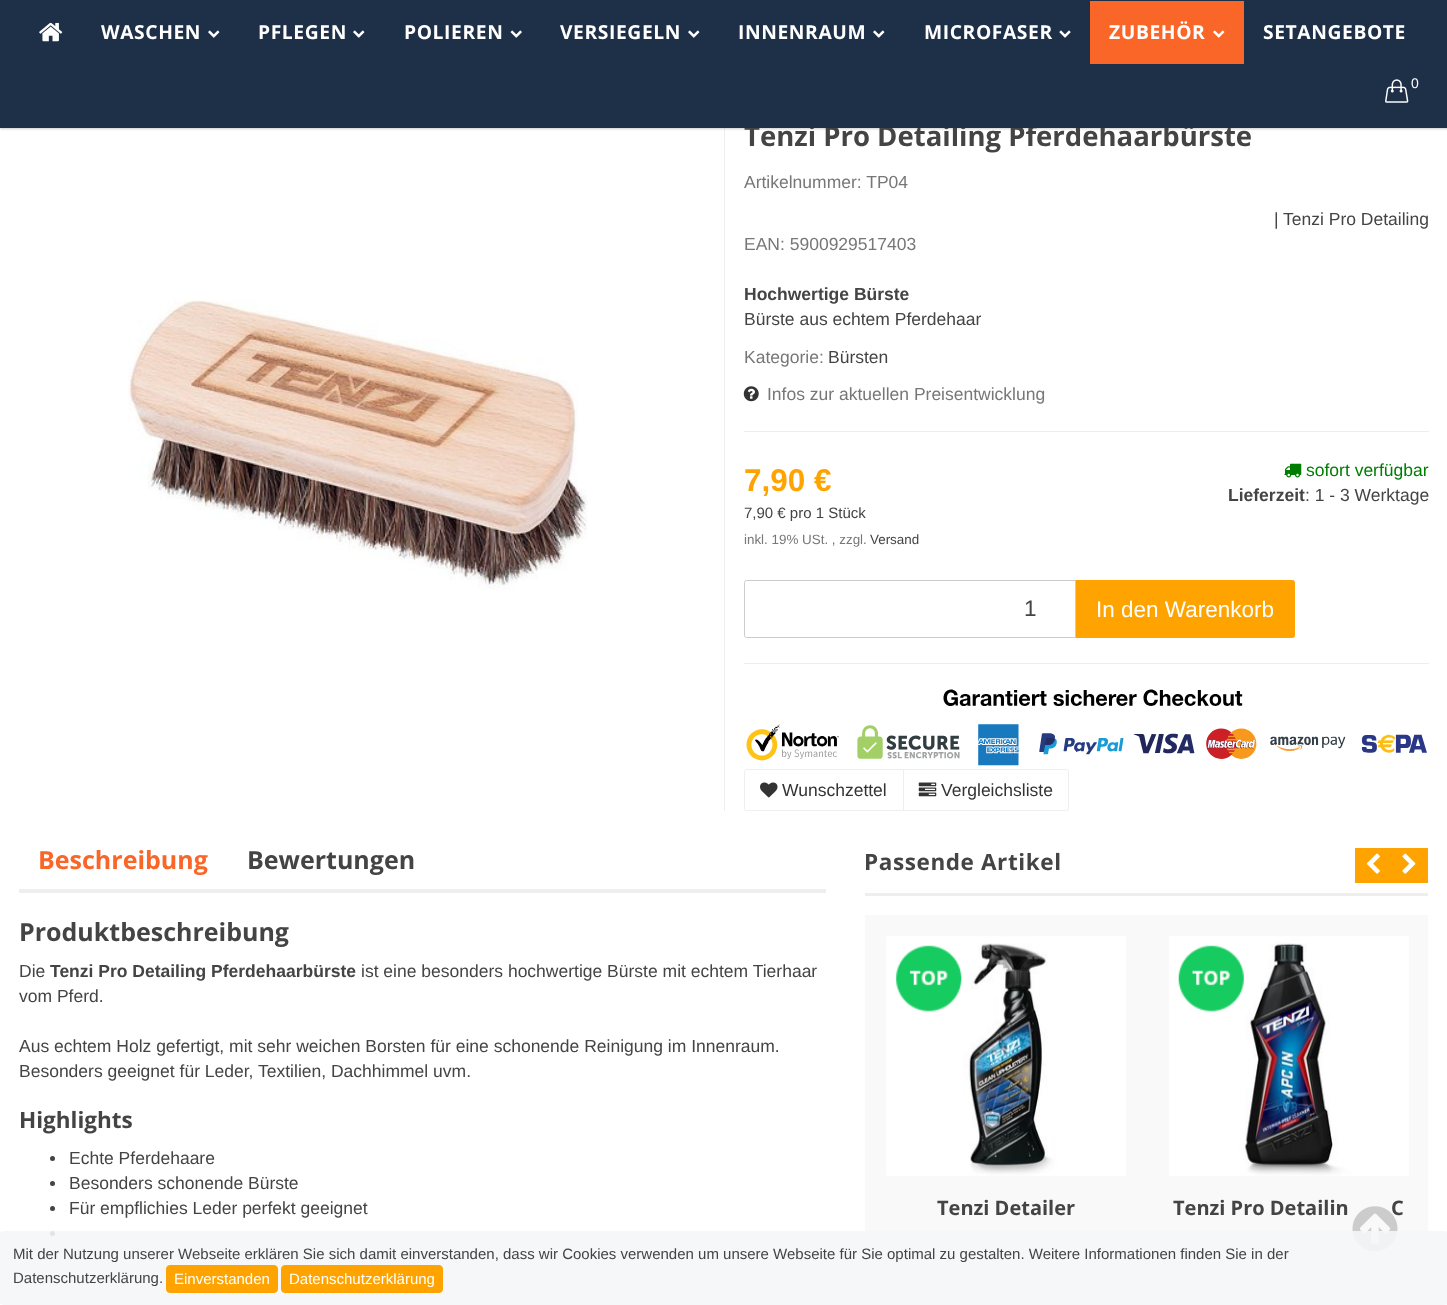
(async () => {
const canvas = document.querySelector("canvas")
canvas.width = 1447
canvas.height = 1305
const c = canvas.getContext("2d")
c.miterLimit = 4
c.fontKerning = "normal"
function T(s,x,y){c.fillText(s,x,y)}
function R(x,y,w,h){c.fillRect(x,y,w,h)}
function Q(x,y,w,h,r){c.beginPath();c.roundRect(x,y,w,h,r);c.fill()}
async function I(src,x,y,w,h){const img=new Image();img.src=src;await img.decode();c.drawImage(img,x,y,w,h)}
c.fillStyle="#fff"
R(0,0,1447,1305)
c.fillStyle="#eee"
R(724,120,1,691)
c.fillStyle="#00000033"
c.filter="blur(1px)"
c.beginPath()
c.rect(0,1,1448,128)
c.fill()
c.filter="none"
c.font="bold 27.5px Open Sans"
c.fillStyle="#444"
T("Tenzi Pro Detailing Pferdehaarbürste",744,146)
c.fillStyle="#1e2f48"
R(0,0,1447,128)
await I("1.png",39,22,24,20)
c.letterSpacing="0.6px"
c.font="bold 19.25px Open Sans"
c.fillStyle="#fff"
T("WASCHEN",101,39)
await I("2.png",208,30,12,8)
T("PFLEGEN",258,39)
await I("2.png",353,30,12,8)
T("POLIEREN",404,39)
await I("3.png",510,30,12,8)
T("VERSIEGELN",560,39)
await I("2.png",688,30,12,8)
T("INNENRAUM",738,39)
await I("2.png",873,30,12,8)
T("MICROFASER",924,39)
await I("4.png",1059,30,12,8)
c.fillStyle="#f96628"
R(1090,1,154,63)
c.fillStyle="#fff"
T("ZUBEHÖR",1109,39)
await I("5.png",1213,30,12,8)
T("SETANGEBOTE",1263,39)
await I("6.png",1385,79,24,24)
c.letterSpacing="0px"
c.font="14px Liberation Sans"
T("0",1411,88)
await I("7.png",128,299,460,291)
c.font="17.5px Liberation Sans"
c.fillStyle="#777"
T("Artikelnummer: TP04",744,188)
c.fillStyle="#444"
T("|",1274,225)
T("Tenzi Pro Detailing",1283,225)
c.fillStyle="#777"
T("EAN: 5900929517403",744,250)
c.font="bold 17.5px Liberation Sans"
c.fillStyle="#444"
T("Hochwertige Bürste",744,300)
c.font="17.5px Liberation Sans"
T("Bürste aus echtem Pferdehaar",744,325)
c.fillStyle="#777"
T("Kategorie:",744,363)
c.fillStyle="#444"
T("Bürsten",828,363)
await I("8.png",743,386,16,16)
c.fillStyle="#777"
T("Infos zur aktuellen Preisentwicklung",767,400)
c.fillStyle="#eee"
R(744,431,685,1)
c.font="bold 31.5px Liberation Sans"
c.fillStyle="#ffa300"
T("7,90 €",744,491)
c.font="15px Liberation Sans"
c.fillStyle="#444"
T("7,90 € pro 1 Stück",744,518)
c.font="13.4px Liberation Sans"
c.fillStyle="#777"
T("inkl. 19% USt. , zzgl.",744,544)
c.fillStyle="#444"
T("Versand",870,544)
await I("9.png",1284,463,18,15)
c.font="17.5px Liberation Sans"
c.fillStyle="#007c00"
T("sofort verfügbar",1306,476)
c.font="bold 17.5px Liberation Sans"
c.fillStyle="#444"
T("Lieferzeit",1228,501)
c.font="17.5px Liberation Sans"
T(": 1 - 3 Werktage",1305,501)
c.fillStyle="#ffa300"
c.beginPath()
c.roundRect(1075.5,580.5,219,57,[0,2,2,0])
c.fill()
c.strokeStyle="#ffa300"
c.stroke()
c.fillStyle="#fff"
c.beginPath()
c.roundRect(744.5,580.5,331,57,[2,0,0,2])
c.fill()
c.strokeStyle="#ccc"
c.stroke()
c.font="22.5px Liberation Sans"
c.fillStyle="#444"
T("1",1024,616)
c.fillStyle="#fff"
T("In den Warenkorb",1096,617)
c.fillStyle="#eee"
R(744,663,685,1)
await I("10.png",746,689,681,77)
c.beginPath()
c.roundRect(744.5,769.5,159,41,[2,0,0,2])
c.strokeStyle="#eee"
c.stroke()
await I("11.png",760,782,18,16)
c.font="17.5px Liberation Sans"
c.fillStyle="#333"
T("Wunschzettel",782,796)
c.beginPath()
c.roundRect(903.5,769.5,165,41,[0,2,2,0])
c.stroke()
await I("12.png",918,782,19,15)
T("Vergleichsliste",941,796)
c.fillStyle="#eee"
R(19,889,807,4)
c.font="bold 25px Open Sans"
c.fillStyle="#f96628"
T("Beschreibung",38,869)
c.fillStyle="#444"
T("Bewertungen",247,869)
T("Produktbeschreibung",19,941)
c.font="17.5px Liberation Sans"
T("Die",19,977)
c.font="bold 17.5px Liberation Sans"
T("Tenzi Pro Detailing Pferdehaarbürste",50,977)
c.font="17.5px Liberation Sans"
T("ist eine besonders hochwertige Bürste mit echtem Tierhaar",361,977)
T("vom Pferd.",19,1002)
T("Aus echtem Holz gefertigt, mit sehr weichen Borsten für eine schonende Reinigung im Innenraum.",19,1052)
T("Besonders geeignet für Leder, Textilien, Dachhimmel uvm.",19,1077)
c.font="bold 22.5px Open Sans"
T("Highlights",19,1128)
c.beginPath()
c.arc(52.5,1158.5,2.5,0,7)
c.fill()
c.font="17.5px Liberation Sans"
T("Echte Pferdehaare",69,1164)
c.beginPath()
c.arc(52.5,1183.5,2.5,0,7)
c.fill()
T("Besonders schonende Bürste",69,1189)
c.beginPath()
c.arc(52.5,1208.5,2.5,0,7)
c.fill()
T("Für empflichies Leder perfekt geeignet",69,1214)
c.beginPath()
c.arc(52.5,1233.5,2.5,0,7)
c.fill()
c.letterSpacing="0.6px"
c.font="bold 22.5px Open Sans"
T("Passende Artikel",864,870)
c.fillStyle="#eee"
R(865,893,563,3)
c.fillStyle="#f9f9f9"
R(865,915,563,390)
c.fillStyle="#ffa300"
R(1355,848,73,35)
await I("13.png",1367,853,13,21)
await I("14.png",1402,853,14,21)
await I("15.png",886,936,240,240)
await I("16.png",896,945,66,67)
c.letterSpacing="0px"
c.font="bold 20px Open Sans"
c.fillStyle="#444"
T("Tenzi Detailer",937,1215)
await I("17.png",1169,936,240,240)
await I("18.png",1178,945,66,67)
T("Tenzi Pro Detailin",1173,1215)
T("C",1391,1215)
await I("19.png",1352,1206,46,46)
c.fillStyle="#f4f6f8e6"
Q(0,1231,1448,74,4)
c.font="15px Liberation Sans"
c.fillStyle="#444"
T("Mit der Nutzung unserer Webseite erklären Sie sich damit einverstanden, dass wir Cookies verwenden um unsere Webseite für Sie optimal zu gestalten. Weitere Informationen finden Sie in der",13,1259)
T("Datenschutzerklärung.",13,1283)
c.fillStyle="#ffa300"
c.beginPath()
c.roundRect(166.5,1265.5,111,27,3.5)
c.fill()
c.strokeStyle="#ffa300"
c.stroke()
c.fillStyle="#fff"
T("Einverstanden",174,1284)
c.fillStyle="#ffa300"
c.beginPath()
c.roundRect(281.5,1265.5,161,27,3.5)
c.fill()
c.stroke()
c.fillStyle="#fff"
T("Datenschutzerklärung",289,1284)
})()
